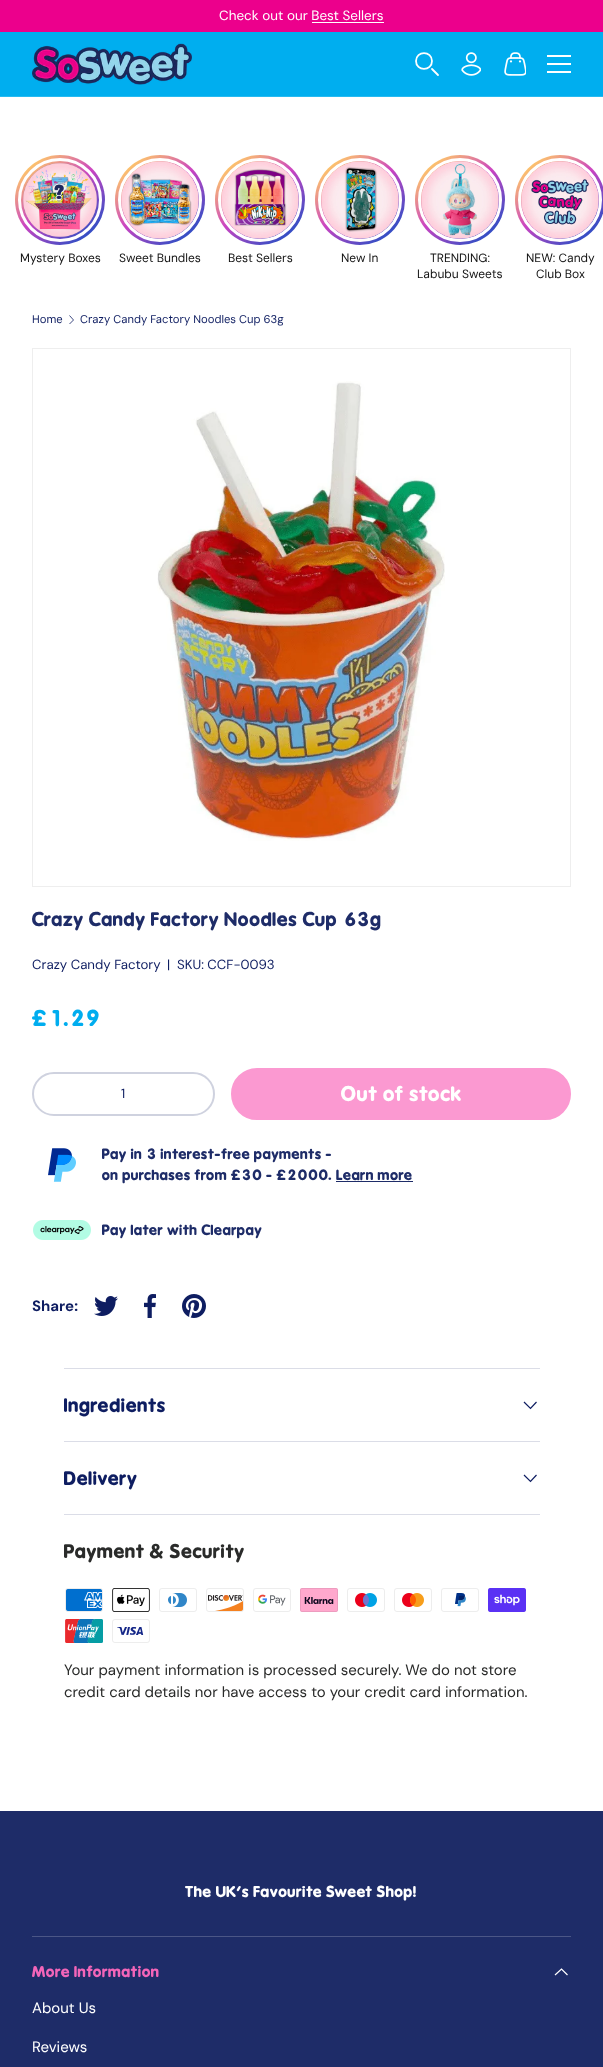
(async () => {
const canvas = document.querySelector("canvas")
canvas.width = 603
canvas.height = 2067
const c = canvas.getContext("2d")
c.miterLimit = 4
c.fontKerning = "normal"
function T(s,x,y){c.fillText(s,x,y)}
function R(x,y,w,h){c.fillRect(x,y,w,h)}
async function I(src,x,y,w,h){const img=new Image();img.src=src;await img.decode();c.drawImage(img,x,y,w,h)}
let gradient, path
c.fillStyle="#fff"
R(0,0,603,2067)
c.fillStyle="#ec008c"
R(0,0,603,32)
c.font="13.5px DM Sans"
c.fillStyle="#fff"
T("Check out our Best Sellers",219,20)
R(312,22,72,1)
c.fillStyle="#00aeef"
R(0,32,603,64)
c.fillStyle="#26baf1"
R(0,96,603,1)
await I("1.png",32,43,160,42)
path = new Path2D("M416 61c0-10.5 16-10.5 16 0c0 10.5-16 10.5-16 0zm16 8l6 6")
c.strokeStyle="#fff"
c.lineWidth=1.8
c.lineCap="round"
c.lineJoin="round"
c.stroke(path)
await I("2.png",461,52,20,24)
await I("3.png",504,52,22,24)
c.fillStyle="#fff"
R(547,55,24,2)
R(547,63,24,2)
R(547,71,24,2)
gradient = c.createLinearGradient(101,249,19,151)
gradient.addColorStop(.16,"#384ec5")
gradient.addColorStop(.52,"#cb44c2")
gradient.addColorStop(.87,"#ffc968")
c.fillStyle = gradient
c.beginPath()
c.arc(60,200,45,0,7)
c.fill()
c.beginPath()
c.arc(60,200,40.5,0,7)
c.lineWidth=3
c.stroke()
await I("4.png",23,163,74,74)
c.font="12px 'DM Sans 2'"
c.fillStyle="#121212"
T("Mystery Boxes",20,262)
gradient = c.createLinearGradient(201,249,119,151)
gradient.addColorStop(.16,"#384ec5")
gradient.addColorStop(.52,"#cb44c2")
gradient.addColorStop(.87,"#ffc968")
c.fillStyle = gradient
c.beginPath()
c.arc(160,200,45,0,7)
c.fill()
c.beginPath()
c.arc(160,200,40.5,0,7)
c.stroke()
await I("5.png",121,161,78,78)
c.fillStyle="#121212"
T("Sweet Bundles",119,262)
gradient = c.createLinearGradient(301,249,219,151)
gradient.addColorStop(.16,"#384ec5")
gradient.addColorStop(.52,"#cb44c2")
gradient.addColorStop(.87,"#ffc968")
c.fillStyle = gradient
c.beginPath()
c.arc(260,200,45,0,7)
c.fill()
c.beginPath()
c.arc(260,200,40.5,0,7)
c.stroke()
await I("6.png",221,161,78,78)
c.fillStyle="#121212"
T("Best Sellers",228,262)
gradient = c.createLinearGradient(401,249,319,151)
gradient.addColorStop(.16,"#384ec5")
gradient.addColorStop(.52,"#cb44c2")
gradient.addColorStop(.87,"#ffc968")
c.fillStyle = gradient
c.beginPath()
c.arc(360,200,45,0,7)
c.fill()
c.beginPath()
c.arc(360,200,40.5,0,7)
c.stroke()
await I("7.png",321,161,78,78)
c.fillStyle="#121212"
T("New In",341,262)
gradient = c.createLinearGradient(501,249,419,151)
gradient.addColorStop(.16,"#384ec5")
gradient.addColorStop(.52,"#cb44c2")
gradient.addColorStop(.87,"#ffc968")
c.fillStyle = gradient
c.beginPath()
c.arc(460,200,45,0,7)
c.fill()
c.beginPath()
c.arc(460,200,40.5,0,7)
c.stroke()
await I("8.png",421,161,78,78)
c.fillStyle="#121212"
T("TRENDING:",430,262)
T("Labubu Sweets",417,278)
gradient = c.createLinearGradient(601,249,519,151)
gradient.addColorStop(.16,"#384ec5")
gradient.addColorStop(.52,"#cb44c2")
gradient.addColorStop(.87,"#ffc968")
c.fillStyle = gradient
c.beginPath()
c.arc(560,200,45,0,7)
c.fill()
c.beginPath()
c.arc(560,200,40.5,0,7)
c.stroke()
await I("9.png",521,161,78,78)
c.fillStyle="#121212"
T("NEW: Candy",526,262)
T("Club Box",536,278)
c.font="11.25px 'DM Sans 2'"
c.fillStyle="#0e1d61"
T("Home",32,323)
path = new Path2D("M69.5 315.5l4 4.5l-4 4")
c.strokeStyle="#0e1d61"
c.lineWidth=0.8
c.lineCap="butt"
c.lineJoin="miter"
c.stroke(path)
T("Crazy Candy Factory Noodles Cup 63g",80,323)
c.strokeStyle="#eee"
c.lineWidth=1
c.strokeRect(32.5,348.5,538,538)
await I("10.png",157,381,288,460)
c.font="bold 18.7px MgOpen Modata"
c.fillStyle="#1e2c68"
T("Crazy Candy Factory Noodles Cup 63g",32,926)
c.font="13.25px 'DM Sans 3'"
c.fillStyle="#0e1d61"
T("Crazy Candy Factory",32,969)
T("|",167,969)
T("SKU: CCF-0093",177,969)
c.font="bold 21.5px MgOpen Modata"
c.fillStyle="#00adef"
T("£1.29",32,1026)
c.beginPath()
c.roundRect(33,1073,181,42,21)
c.strokeStyle="#cfd2df"
c.lineWidth=2
c.stroke()
c.font="13.25px 'DM Sans 3'"
c.fillStyle="#0e1d61"
T("1",121,1098)
c.fillStyle="#fb99d1"
c.beginPath()
c.roundRect(232,1069,338,50,25)
c.fill()
c.strokeStyle="#fb99d1"
c.stroke()
c.font="bold 20px MgOpen Modata"
c.fillStyle="#fff"
T("Out of stock",341,1101)
await I("11.png",48,1148,28,34)
c.font="bold 14px MgOpen Modata"
c.fillStyle="#1e2c68"
T("Pay in 3 interest-free payments -",102,1159)
T("on purchases from £30 - £2000. Learn more",102,1180)
R(336,1181,77,1)
await I("12.png",33,1220,58,20)
T("Pay later with Clearpay",102,1235)
c.font="bold 15px DM Sans"
c.fillStyle="#0e1d61"
T("Share:",32,1311)
await I("13.png",94,1296,24,20)
await I("14.png",144,1294,12,24)
await I("15.png",182,1294,24,24)
c.fillStyle="#dbdde7"
R(64,1368,476,1)
R(64,1441,476,1)
c.save()
c.beginPath()
c.rect(64,1369,476,72)
c.clip()
c.font="bold 18.7px MgOpen Modata"
c.fillStyle="#0e1d61"
T("Ingredients",64,1412)
c.restore()
path = new Path2D("M536.5 1402l-6 6.5l-6.5-6.5")
c.strokeStyle="#0e1d61"
c.lineWidth=1.2
c.stroke(path)
R(64,1514,476,1)
c.save()
c.beginPath()
c.rect(64,1442,476,72)
c.clip()
c.font="bold 18.7px MgOpen Modata"
c.fillStyle="#0e1d61"
T("Delivery",64,1485)
c.restore()
path = new Path2D("M536.5 1475l-6 6.5l-6.5-6.5")
c.stroke(path)
c.font="bold 18.7px MgOpen Modata"
c.fillStyle="#2a2b2a"
T("Payment & Security",64,1558)
await I("16.png",65,1588,38,24)
await I("17.png",112,1588,38,24)
await I("18.png",159,1588,38,24)
await I("19.png",206,1588,38,24)
await I("20.png",253,1588,38,24)
await I("21.png",300,1588,38,24)
await I("22.png",347,1588,38,24)
await I("23.png",394,1588,38,24)
await I("24.png",441,1588,38,24)
await I("25.png",488,1588,38,24)
await I("26.png",65,1619,38,24)
await I("27.png",112,1619,38,24)
c.font="15px 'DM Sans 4'"
T("Your payment information is processed securely. We do not store",64,1675)
T("credit card details nor have access to your credit card information.",64,1697)
c.fillStyle="#1e2c68"
R(0,1811,603,256)
c.font="bold 15px MgOpen Modata"
c.fillStyle="#fff"
T("The UK's Favourite Sweet Shop!",185,1897)
c.fillStyle="#4b5686"
R(32,1936,539,1)
c.fillStyle="#f365b9"
T("More Information",32,1977)
path = new Path2D("M567.5 1975l-6-6l-6.5 6")
c.strokeStyle="#fff"
c.stroke(path)
c.font="15px 'DM Sans 4'"
c.fillStyle="#fff"
T("About Us",32,2013)
T("Reviews",32,2052)
})()
